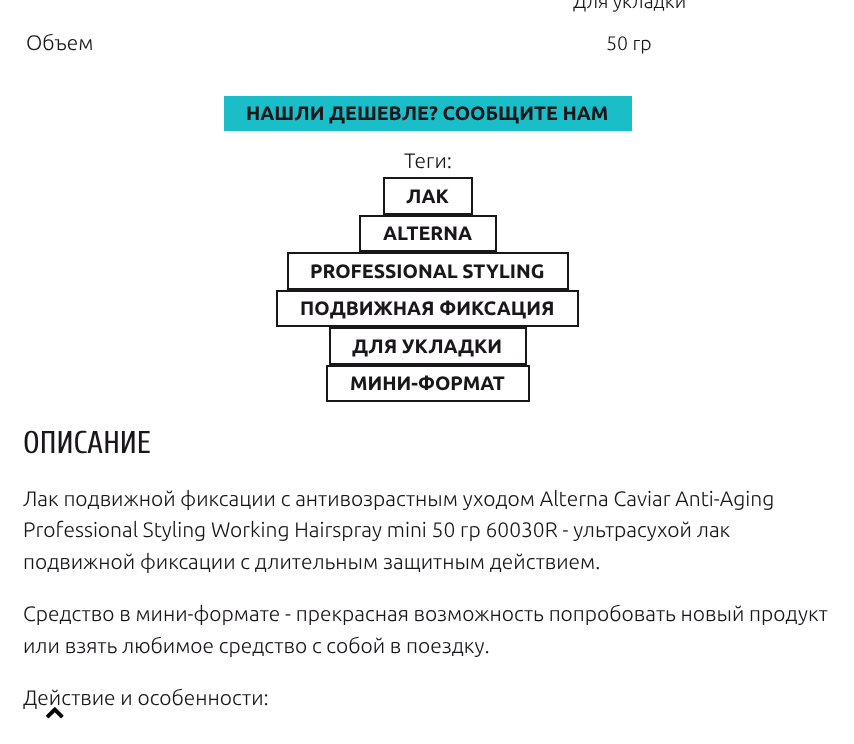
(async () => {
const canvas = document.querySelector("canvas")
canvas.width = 854
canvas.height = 744
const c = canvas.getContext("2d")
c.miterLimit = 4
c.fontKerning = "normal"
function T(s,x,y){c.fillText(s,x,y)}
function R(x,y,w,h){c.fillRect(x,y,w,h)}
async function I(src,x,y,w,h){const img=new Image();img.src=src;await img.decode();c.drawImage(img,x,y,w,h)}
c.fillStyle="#fff"
R(0,0,854,744)
c.font="300 19.5px Ubuntu"
c.fillStyle="#1a171b"
T("Для укладки",573,8)
c.font="300 21px Ubuntu"
T("Объем",26,50)
c.font="300 19.5px Ubuntu"
T("50 гр",606,50)
c.fillStyle="#1abec8"
R(224,96,408,35)
c.font="bold 19.5px Ubuntu"
c.fillStyle="#1a171b"
T("НАШЛИ ДЕШЕВЛЕ? СООБЩИТЕ НАМ",246,120)
c.font="300 21px Ubuntu"
T("Теги:",404,168)
c.strokeStyle="#1a171b"
c.lineWidth=2
c.strokeRect(384,178,88,36)
c.font="bold 19.5px Ubuntu"
T("ЛАК",406,203)
c.strokeRect(360,216,136,35)
T("ALTERNA",383,240)
c.strokeRect(288,253,280,36)
T("PROFESSIONAL STYLING",310,278)
c.strokeRect(277,291,301,35)
T("ПОДВИЖНАЯ ФИКСАЦИЯ",300,315)
c.strokeRect(330,328,196,36)
T("ДЛЯ УКЛАДКИ",352,353)
c.strokeRect(327,366,202,35)
T("МИНИ-ФОРМАТ",350,390)
c.font="31.5px Cuprum"
T("ОПИСАНИЕ",23,453)
c.font="300 21px Ubuntu"
T("Лак подвижной фиксации с антивозрастным уходом Alterna Caviar Anti-Aging",23,506)
T("Professional Styling Working Hairspray mini 50 гр 60030R - ультрасухой лак",23,537)
T("подвижной фиксации с длительным защитным действием.",23,569)
T("Средство в мини-формате - прекрасная возможность попробовать новый продукт",23,621)
T("или взять любимое средство с собой в поездку.",23,653)
T("Действие и особенности:",23,705)
await I("1.png",46,707,18,12)
})()
